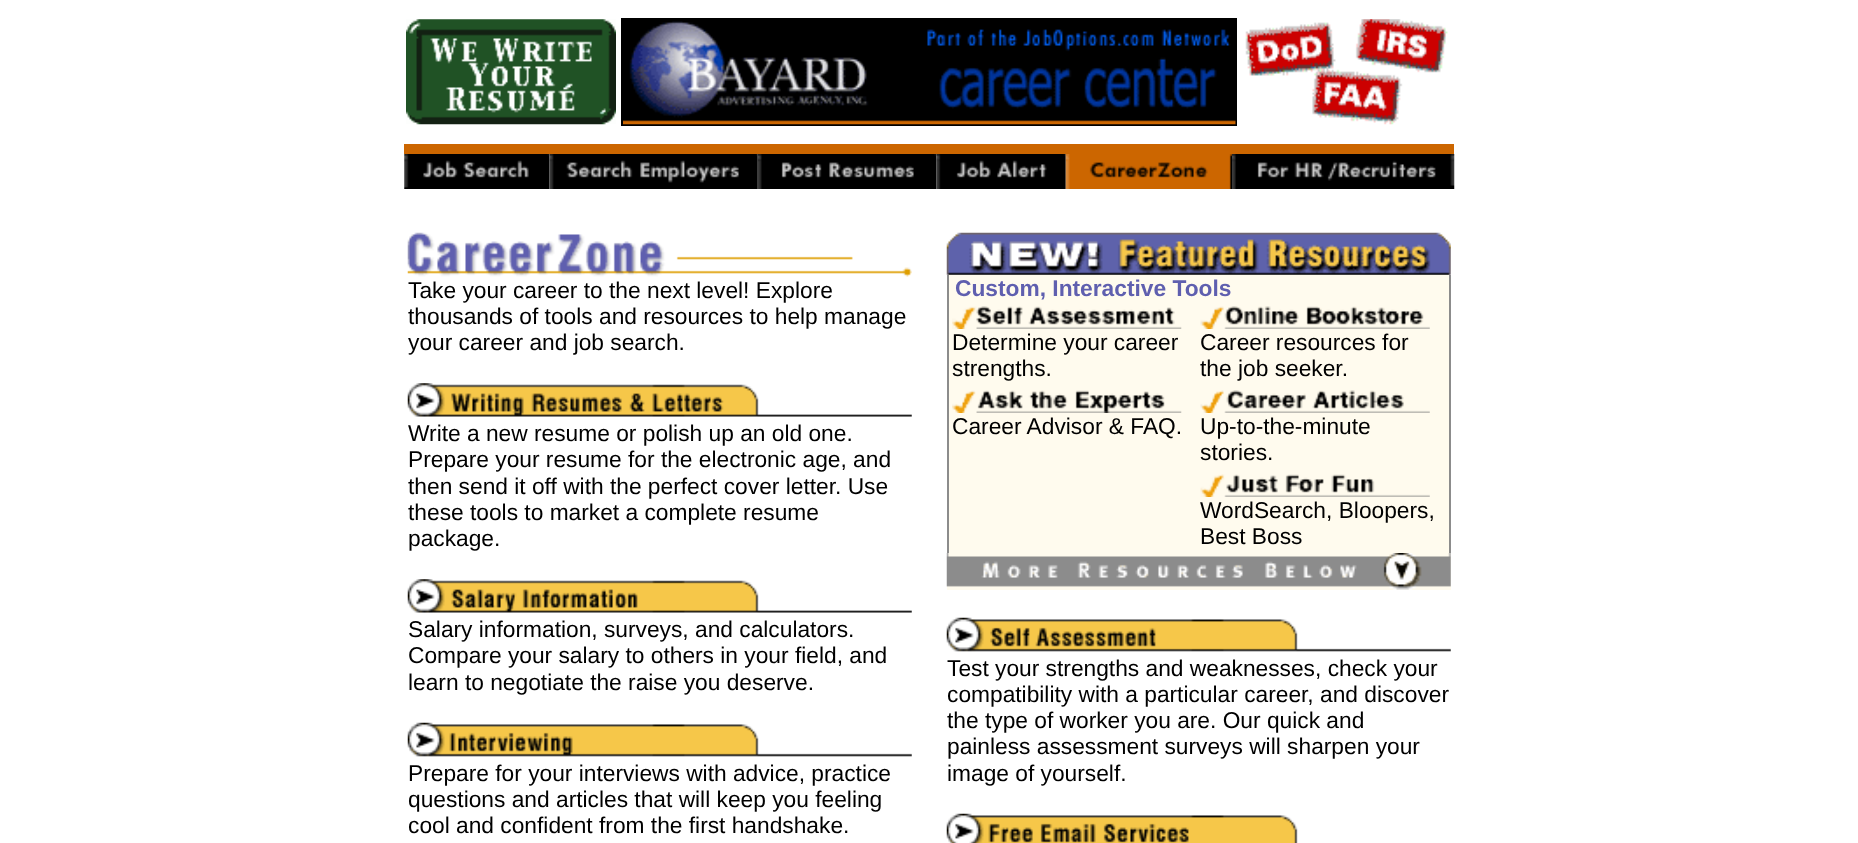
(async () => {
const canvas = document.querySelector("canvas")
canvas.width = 1858
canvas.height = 843
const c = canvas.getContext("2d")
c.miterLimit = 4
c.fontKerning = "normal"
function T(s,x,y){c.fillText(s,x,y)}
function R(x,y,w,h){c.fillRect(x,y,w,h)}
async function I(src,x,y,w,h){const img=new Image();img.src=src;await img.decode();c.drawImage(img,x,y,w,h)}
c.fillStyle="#fff"
R(0,0,1858,843)
await I("1.png",406,19,210,106)
c.fillStyle="#000"
R(621,18,616,108)
await I("2.png",623,21,613,104)
await I("3.png",1245,19,203,106)
c.fillStyle="#c60"
R(404,144,1050,10)
await I("4.png",404,154,146,35)
await I("5.png",549,154,209,35)
await I("6.png",757,154,180,35)
await I("7.png",936,154,130,35)
await I("8.png",1065,154,167,35)
await I("9.png",1232,154,223,35)
await I("10.png",407,232,505,45)
c.font="22.75px Liberation Sans"
c.fillStyle="#000"
T("Take your career to the next level! Explore",408,298)
T("thousands of tools and resources to help manage",408,324)
T("your career and job search.",408,350)
await I("11.png",407,383,505,34)
T("Write a new resume or polish up an old one.",408,441)
T("Prepare your resume for the electronic age, and",408,467)
T("then send it off with the perfect cover letter. Use",408,494)
T("these tools to market a complete resume",408,520)
T("package.",408,546)
await I("12.png",407,579,505,34)
T("Salary information, surveys, and calculators.",408,637)
T("Compare your salary to others in your field, and",408,663)
T("learn to negotiate the raise you deserve.",408,690)
await I("13.png",407,722,505,35)
T("Prepare for your interviews with advice, practice",408,781)
T("questions and articles that will keep you feeling",408,807)
T("cool and confident from the first handshake.",408,833)
await I("14.png",946,232,505,43)
c.fillStyle="#8c8c8c"
R(947,275,2,278)
c.fillStyle="#fffbee"
R(949,275,500,278)
c.font="bold 22.75px Liberation Sans"
c.fillStyle="#5f5faf"
T("Custom, Interactive Tools",955,296)
c.fillStyle="#8c8c8c"
R(1449,275,2,278)
await I("15.png",952,306,230,23)
c.font="22.75px Liberation Sans"
c.fillStyle="#000"
T("Determine your career",952,350)
T("strengths.",952,376)
await I("16.png",1200,306,230,23)
T("Career resources for",1200,350)
T("the job seeker.",1200,376)
await I("17.png",952,390,230,23)
T("Career Advisor & FAQ.",952,434)
await I("18.png",1200,390,230,23)
T("Up-to-the-minute",1200,434)
T("stories.",1200,460)
await I("19.png",1200,474,230,23)
T("WordSearch, Bloopers,",1200,518)
T("Best Boss",1200,544)
c.fillStyle="#fffbee"
R(947,553,504,37)
await I("20.png",946,553,505,37)
await I("21.png",946,617,505,35)
c.fillStyle="#000"
T("Test your strengths and weaknesses, check your",947,676)
T("compatibility with a particular career, and discover",947,702)
T("the type of worker you are. Our quick and",947,728)
T("painless assessment surveys will sharpen your",947,754)
T("image of yourself.",947,781)
await I("22.png",946,813,352,30)
})()
